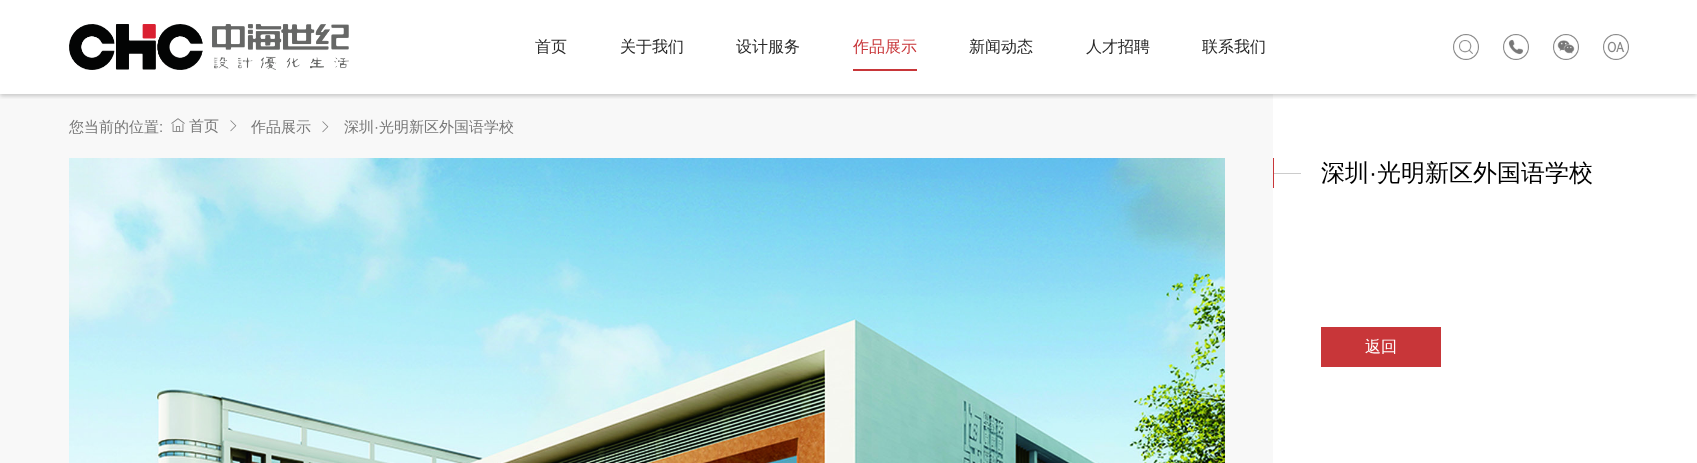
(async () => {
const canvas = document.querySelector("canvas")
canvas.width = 1697
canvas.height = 463
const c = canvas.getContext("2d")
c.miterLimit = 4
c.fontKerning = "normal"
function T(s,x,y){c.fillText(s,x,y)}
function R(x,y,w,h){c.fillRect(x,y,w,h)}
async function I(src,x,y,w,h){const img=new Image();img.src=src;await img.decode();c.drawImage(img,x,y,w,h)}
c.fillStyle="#fff"
R(0,0,1697,463)
c.fillStyle="#f8f8f8"
R(0,94,1273,369)
c.save()
c.beginPath()
c.rect(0,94,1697,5)
c.clip()
c.fillStyle="#00000033"
c.filter="blur(2px)"
c.beginPath()
c.rect(0,2,1697,94)
c.fill()
c.filter="none"
c.restore()
await I("1.png",69,24,280,46)
c.font="500 16px WenQuanYi Zen Hei"
c.fillStyle="#282828"
T("首页",535,52)
T("关于我们",620,52)
T("设计服务",736,52)
c.fillStyle="#c83639"
T("作品展示",853,52)
R(853,69,64,2)
c.fillStyle="#282828"
T("新闻动态",969,52)
T("人才招聘",1086,52)
T("联系我们",1202,52)
await I("2.png",1453,34,26,26)
await I("3.png",1503,34,26,26)
await I("4.png",1553,34,26,26)
await I("5.png",1603,34,26,26)
c.font="500 15px WenQuanYi Zen Hei"
c.fillStyle="#777"
T("您当前的位置",69,132)
c.font="15px Liberation Sans"
T(":",159,132)
await I("6.png",171,118,14,14)
c.font="500 15px WenQuanYi Zen Hei"
T("首页",189,131)
await I("7.png",230,120,7,12)
T("作品展示",251,132)
await I("7.png",322,121,7,12)
T("深圳",344,132)
c.font="15px Liberation Sans"
T("·",374,132)
c.font="500 15px WenQuanYi Zen Hei"
T("光明新区外国语学校",379,132)
await I("8.png",69,158,1156,305)
c.fillStyle="#ccc"
R(1273,173,28,1)
c.fillStyle="#c83639"
R(1273,158,1,30)
c.font="500 24px WenQuanYi Zen Hei"
c.fillStyle="#000"
T("深圳",1321,181)
T("光明新区外国语学校",1377,181)
c.font="24px Liberation Sans"
T("·",1369,181)
c.fillStyle="#c83639"
R(1321,327,120,40)
c.font="500 16px WenQuanYi Zen Hei"
c.fillStyle="#fff"
T("返回",1365,352)
})()
